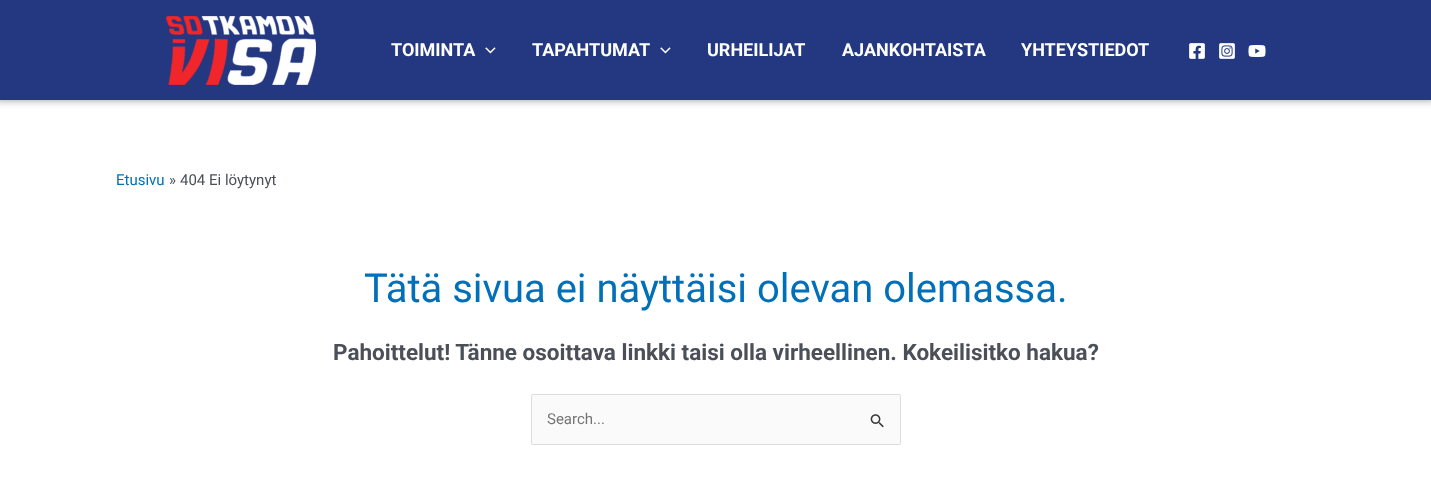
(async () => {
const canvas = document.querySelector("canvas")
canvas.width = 1431
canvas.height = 502
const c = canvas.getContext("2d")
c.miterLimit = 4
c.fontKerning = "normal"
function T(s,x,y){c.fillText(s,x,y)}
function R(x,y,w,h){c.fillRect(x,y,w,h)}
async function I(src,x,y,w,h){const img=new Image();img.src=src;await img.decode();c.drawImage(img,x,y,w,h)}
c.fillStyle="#fff"
R(0,0,1431,502)
c.fillStyle="#00000080"
c.filter="blur(5px)"
c.beginPath()
c.rect(-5,-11,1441,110)
c.fill()
c.filter="none"
c.fillStyle="#233881"
R(0,0,1431,100)
await I("1.png",166,16,150,69)
c.font="bold 18px Roboto"
c.fillStyle="#fff"
T("TOIMINTA",391,56)
await I("2.png",485,47,11,7)
T("TAPAHTUMAT",532,56)
await I("2.png",660,47,11,7)
T("URHEILIJAT",707,56)
T("AJANKOHTAISTA",842,56)
T("YHTEYSTIEDOT",1021,56)
await I("3.png",1189,43,16,16)
await I("4.png",1219,43,16,16)
await I("5.png",1248,45,18,12)
c.font="15px Roboto"
c.fillStyle="#0170b9"
T("Etusivu",116,185)
c.fillStyle="#4b4f58"
T("»",169,185)
T("404 Ei löytynyt",180,185)
c.font="40px Roboto"
c.fillStyle="#0170b9"
T("Tätä sivua ei näyttäisi olevan olemassa.",364,302)
c.font="bold 22.5px Roboto"
c.fillStyle="#4b4f58"
T("Pahoittelut! Tänne osoittava linkki taisi olla virheellinen. Kokeilisitko hakua?",333,360)
c.fillStyle="#fafafa"
c.beginPath()
c.roundRect(531.5,394.5,369,50,1.5)
c.fill()
c.strokeStyle="#ddd"
c.stroke()
c.font="15px Roboto"
c.fillStyle="#757575"
T("Search...",547,424)
await I("6.png",870,414,14,14)
})()
